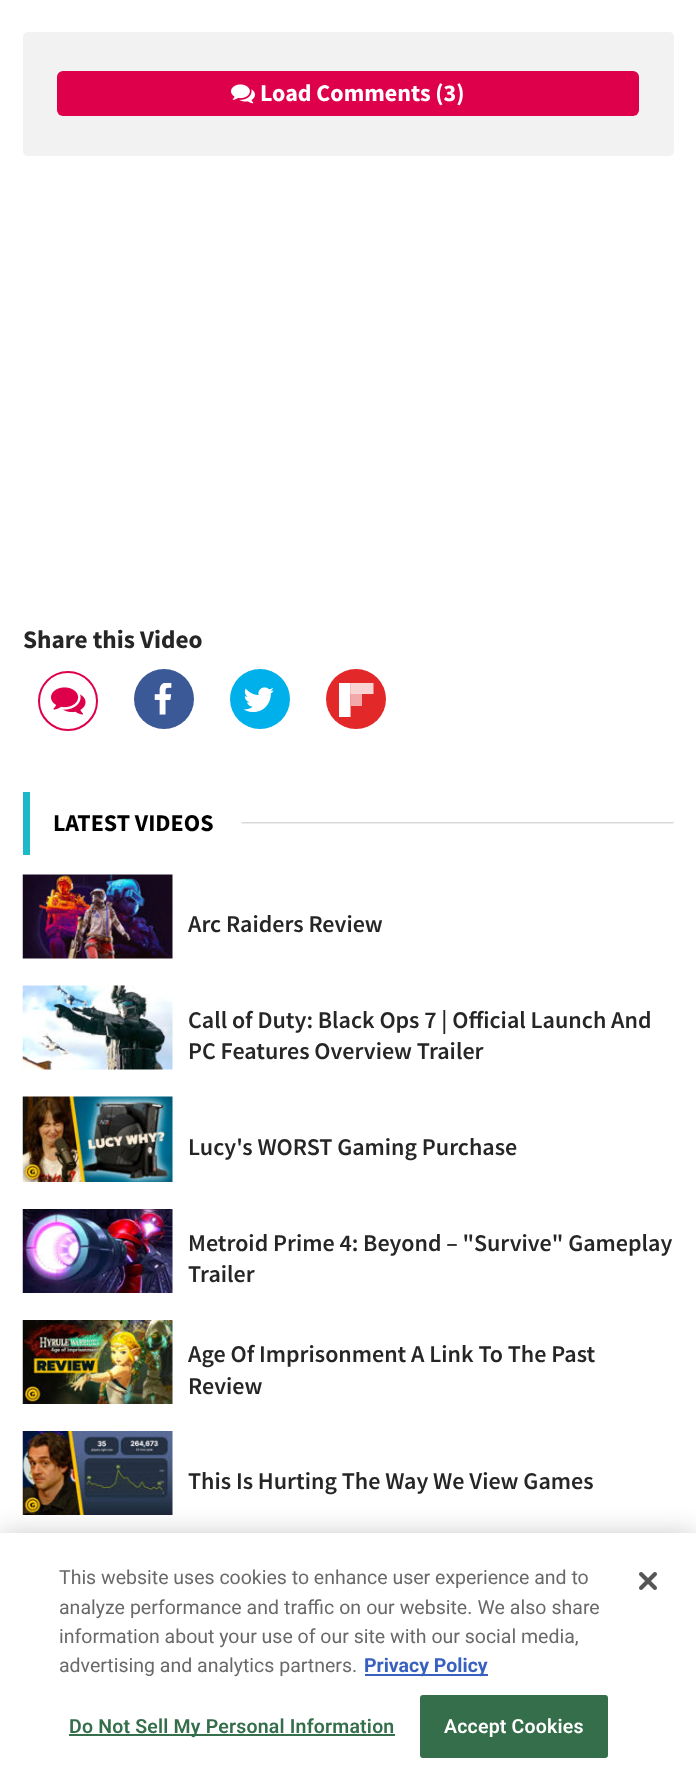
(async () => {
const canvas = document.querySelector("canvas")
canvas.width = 696
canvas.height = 1782
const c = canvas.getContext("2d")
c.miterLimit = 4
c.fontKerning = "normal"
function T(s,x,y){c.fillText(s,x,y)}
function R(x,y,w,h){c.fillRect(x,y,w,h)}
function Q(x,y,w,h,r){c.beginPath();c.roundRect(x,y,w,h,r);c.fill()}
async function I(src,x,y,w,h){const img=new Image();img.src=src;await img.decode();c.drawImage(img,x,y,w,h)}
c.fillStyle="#fff"
R(0,0,696,1782)
c.fillStyle="#f2f2f2"
Q(23,32,651,124,5)
c.fillStyle="#de004a"
Q(57,71,582,45,6)
await I("1.png",231,84,24,20)
c.font="bold 24px Source Sans Pro"
c.fillStyle="#fff"
T("Load Comments (3)",260,101)
c.font="bold 25.25px Source Sans Pro"
c.fillStyle="#262626"
T("Share this Video",23,648)
c.beginPath()
c.arc(68,701,29,0,7)
c.strokeStyle="#de004a"
c.lineWidth=2
c.stroke()
await I("2.png",51,687,35,28)
c.fillStyle="#3b5897"
c.beginPath()
c.arc(164,699,30,0,7)
c.fill()
await I("3.png",154,683,18,32)
c.fillStyle="#00b0eb"
c.beginPath()
c.arc(260,699,30,0,7)
c.fill()
await I("4.png",243,687,31,26)
c.fillStyle="#e22828"
c.beginPath()
c.arc(356,699,30,0,7)
c.fill()
await I("5.png",339,683,35,34)
c.fillStyle="#1eb9c7"
R(23,792,7,63)
c.font="bold 24px Source Sans Pro"
c.fillStyle="#000"
T("LATEST VIDEOS",53,831)
await I("6.png",241,822,433,2)
await I("7.png",22,874,151,85)
c.font="600 24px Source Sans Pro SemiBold"
c.fillStyle="#262626"
T("Arc Raiders Review",188,932)
await I("8.png",22,985,151,85)
T("Call of Duty: Black Ops 7 | Official Launch And",188,1028)
T("PC Features Overview Trailer",188,1059)
await I("9.png",22,1096,151,86)
T("Lucy's WORST Gaming Purchase",188,1155)
await I("10.png",22,1209,151,84)
T("Metroid Prime 4: Beyond – \"Survive\" Gameplay",188,1251)
T("Trailer",188,1282)
await I("11.png",22,1320,151,84)
T("Age Of Imprisonment A Link To The Past",188,1362)
T("Review",188,1394)
await I("12.png",22,1431,151,84)
T("This Is Hurting The Way We View Games",188,1489)
c.fillStyle="#00000033"
c.filter="blur(13.5px)"
c.beginPath()
c.rect(0,1533,696,249)
c.fill()
c.filter="none"
c.fillStyle="#fff"
R(0,1533,696,249)
c.font="19.5px Roboto"
c.fillStyle="#696969"
T("This website uses cookies to enhance user experience and to",59,1584)
c.wordSpacing="0.25px"
T("analyze performance and traffic on our website. We also share",59,1614)
c.wordSpacing="0px"
T("information about your use of our site with our social media,",59,1643)
T("advertising and analytics partners.",59,1672)
c.fillStyle="#3860be"
R(365,1674,123,2)
c.font="bold 19.5px Roboto"
T("Privacy Policy",364,1672)
c.fillStyle="#346e4a"
R(69,1734,326,2)
c.letterSpacing="0.2px"
c.font="600 19.5px Roboto"
T("Do Not Sell My Personal Information",69,1733)
c.beginPath()
c.roundRect(421,1696,186,61,2)
c.fill()
c.strokeStyle="#346e4a"
c.stroke()
c.fillStyle="#fff"
T("Accept Cookies",444,1733)
await I("13.png",639,1572,18,18)
})()
